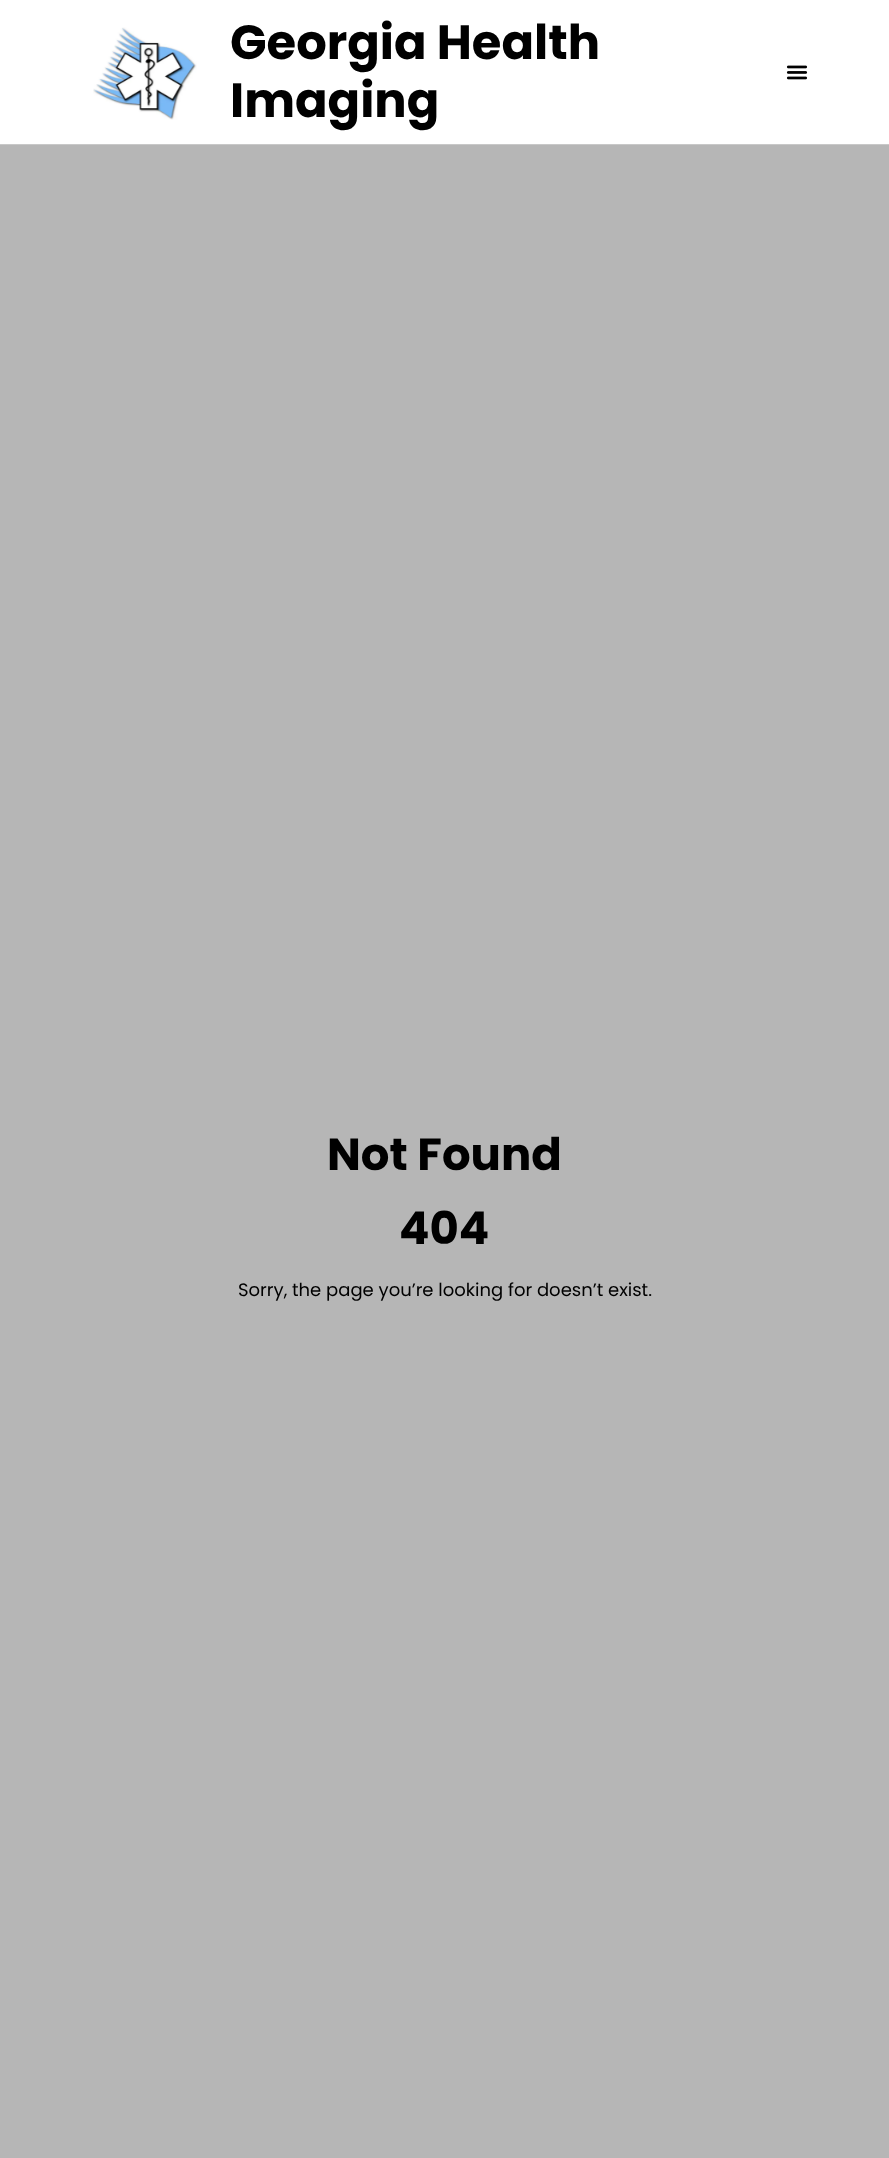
(async () => {
const canvas = document.querySelector("canvas")
canvas.width = 889
canvas.height = 2158
const c = canvas.getContext("2d")
c.miterLimit = 4
c.fontKerning = "normal"
function T(s,x,y){c.fillText(s,x,y)}
function R(x,y,w,h){c.fillRect(x,y,w,h)}
async function I(src,x,y,w,h){const img=new Image();img.src=src;await img.decode();c.drawImage(img,x,y,w,h)}
c.fillStyle="#fff"
R(0,0,889,2158)
await I("1.png",93,27,104,93)
c.font="bold 48px Poppins"
c.fillStyle="#000"
T("Georgia Health",230,59)
T("Imaging",230,117)
await I("2.png",786,65,22,15)
c.fillStyle="#c8c8c8"
R(0,144,889,1)
c.fillStyle="#b6b6b6"
R(0,145,889,2013)
c.font="bold 45px Poppins"
c.fillStyle="#000"
T("Not Found",327,1170)
T("404",399,1244)
c.font="18px Poppins"
T("Sorry, the page you’re looking for doesn’t exist.",238,1296)
})()
